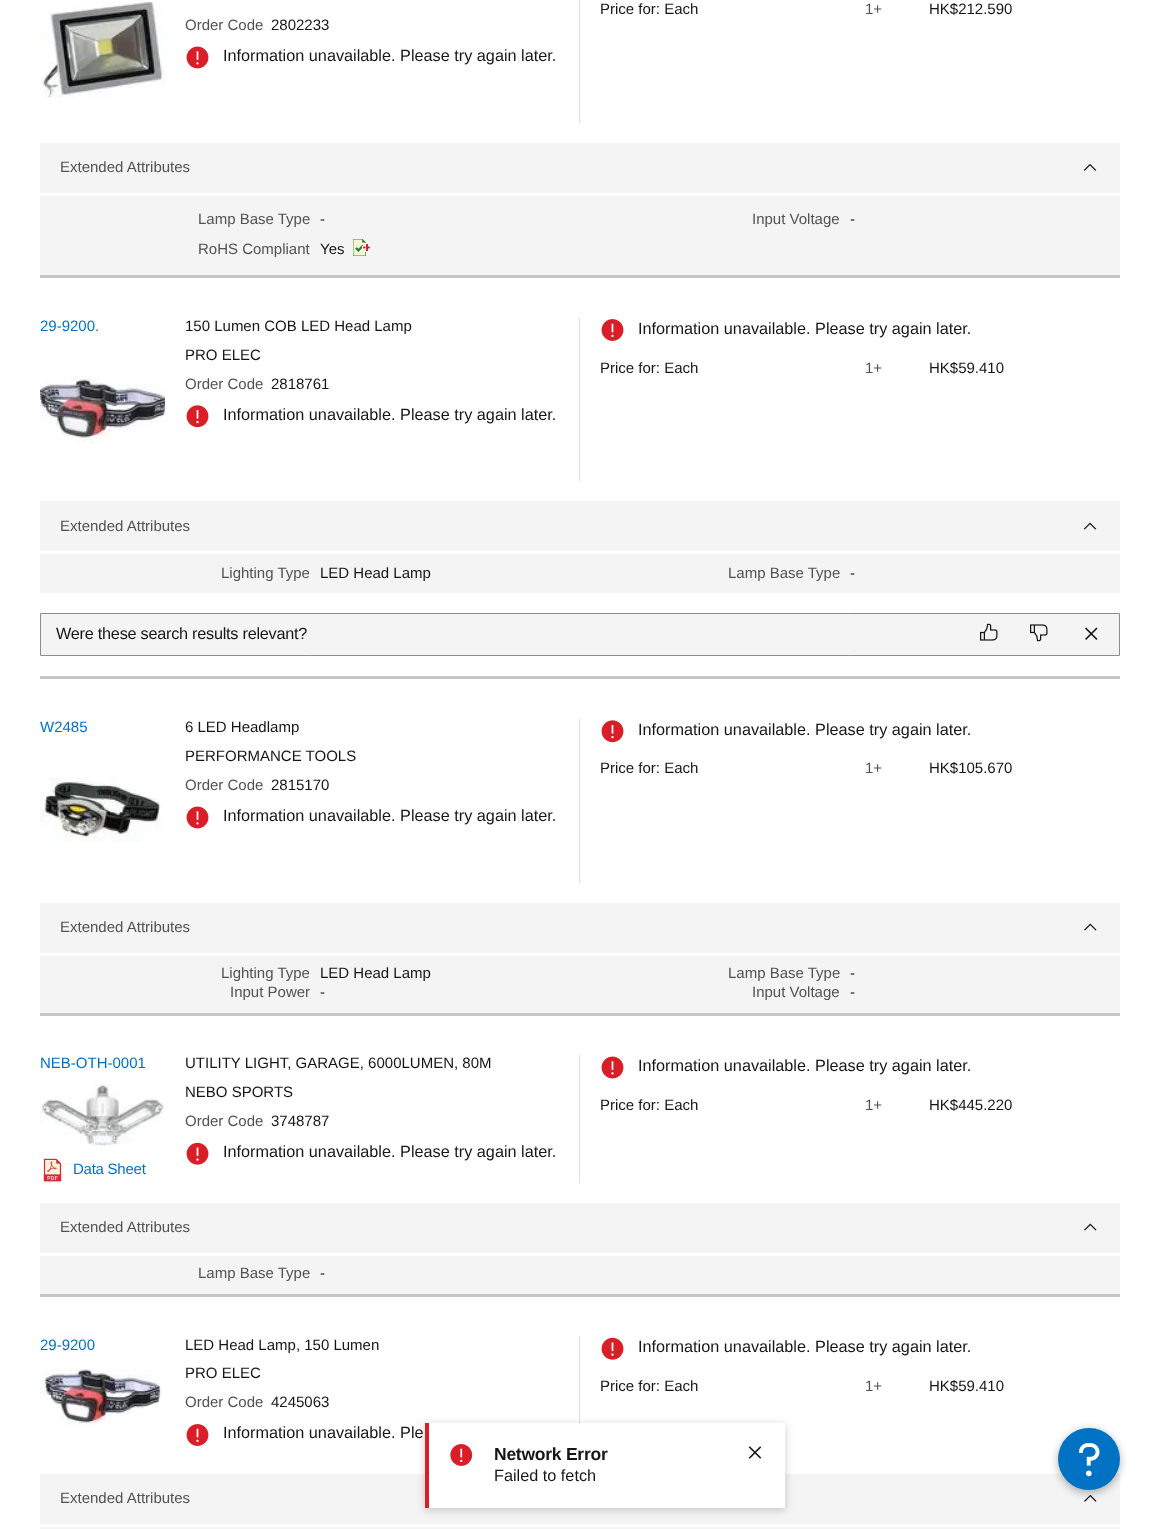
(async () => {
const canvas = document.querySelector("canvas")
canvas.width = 1160
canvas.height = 1529
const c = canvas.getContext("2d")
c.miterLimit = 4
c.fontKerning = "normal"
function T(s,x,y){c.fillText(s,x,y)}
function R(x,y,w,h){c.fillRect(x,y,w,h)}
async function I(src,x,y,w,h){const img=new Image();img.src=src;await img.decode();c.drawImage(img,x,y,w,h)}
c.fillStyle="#fff"
R(0,0,1160,1529)
c.font="15px Liberation Sans"
c.fillStyle="#161616"
T("Price for: Each",600,14)
c.fillStyle="#525252"
T("1+",865,14)
c.fillStyle="#161616"
T("HK$212.590",929,14)
await I("1.png",40,2,125,96)
c.fillStyle="#e0e0e0"
R(579,0,1,123)
c.fillStyle="#525252"
T("Order Code",185,30)
c.fillStyle="#161616"
T("2802233",271,30)
await I("2.png",186,46,23,23)
c.font="16.25px Liberation Sans"
T("Information unavailable. Please try again later.",223,61)
c.fillStyle="#f4f4f4"
R(40,143,1080,132)
c.font="15px Liberation Sans"
c.fillStyle="#525252"
T("Extended Attributes",60,172)
await I("3.png",1083,163,14,8)
c.fillStyle="#fff"
R(40,193,1080,3)
c.fillStyle="#525252"
T("Lamp Base Type",198,224)
c.fillStyle="#161616"
T("-",320,224)
c.fillStyle="#525252"
T("Input Voltage",752,224)
c.fillStyle="#161616"
T("-",850,224)
c.fillStyle="#525252"
T("RoHS Compliant",198,254)
c.fillStyle="#161616"
T("Yes",320,254)
await I("4.png",353,239,17,17)
c.fillStyle="#c6c6c6"
R(40,275,1080,3)
c.fillStyle="#0072c3"
T("29-9200.",40,331)
await I("5.png",40,376,125,68)
c.fillStyle="#e0e0e0"
R(579,318,1,163)
c.fillStyle="#161616"
T("150 Lumen COB LED Head Lamp",185,331)
T("PRO ELEC",185,360)
c.fillStyle="#525252"
T("Order Code",185,389)
c.fillStyle="#161616"
T("2818761",271,389)
await I("6.png",186,405,23,23)
c.font="16.25px Liberation Sans"
T("Information unavailable. Please try again later.",223,420)
await I("7.png",601,319,23,22)
T("Information unavailable. Please try again later.",638,334)
c.font="15px Liberation Sans"
T("Price for: Each",600,373)
c.fillStyle="#525252"
T("1+",865,373)
c.fillStyle="#161616"
T("HK$59.410",929,373)
c.fillStyle="#f4f4f4"
R(40,501,1080,92)
c.fillStyle="#525252"
T("Extended Attributes",60,531)
await I("8.png",1083,522,14,8)
c.fillStyle="#fff"
R(40,551,1080,3)
c.fillStyle="#525252"
T("Lighting Type",221,578)
c.fillStyle="#161616"
T("LED Head Lamp",320,578)
c.fillStyle="#525252"
T("Lamp Base Type",728,578)
c.fillStyle="#161616"
T("-",850,578)
c.fillStyle="#f4f4f4"
c.beginPath()
c.rect(40.5,613.5,1079,42)
c.fill()
c.strokeStyle="#8d8d8d"
c.stroke()
c.letterSpacing="-0.25px"
c.font="16.25px Liberation Sans"
c.fillStyle="#161616"
T("Were these search results relevant?",56,639)
await I("9.png",980,623,18,18)
await I("10.png",1030,624,18,18)
await I("11.png",1085,627,13,13)
c.fillStyle="#c6c6c6"
R(40,676,1080,3)
c.letterSpacing="0px"
c.font="15px Liberation Sans"
c.fillStyle="#0072c3"
T("W2485",40,732)
await I("12.png",40,777,121,66)
c.fillStyle="#e0e0e0"
R(579,719,1,164)
c.fillStyle="#161616"
T("6 LED Headlamp",185,732)
T("PERFORMANCE TOOLS",185,761)
c.fillStyle="#525252"
T("Order Code",185,790)
c.fillStyle="#161616"
T("2815170",271,790)
await I("2.png",186,806,23,23)
c.font="16.25px Liberation Sans"
T("Information unavailable. Please try again later.",223,821)
await I("6.png",601,720,23,23)
T("Information unavailable. Please try again later.",638,735)
c.font="15px Liberation Sans"
T("Price for: Each",600,773)
c.fillStyle="#525252"
T("1+",865,773)
c.fillStyle="#161616"
T("HK$105.670",929,773)
c.fillStyle="#f4f4f4"
R(40,903,1080,110)
c.fillStyle="#525252"
T("Extended Attributes",60,932)
await I("13.png",1084,923,13,8)
c.fillStyle="#fff"
R(40,953,1080,3)
c.fillStyle="#525252"
T("Lighting Type",221,978)
c.fillStyle="#161616"
T("LED Head Lamp",320,978)
c.fillStyle="#525252"
T("Lamp Base Type",728,978)
c.fillStyle="#161616"
T("-",850,978)
c.fillStyle="#525252"
T("Input Power",230,997)
c.fillStyle="#161616"
T("-",320,997)
c.fillStyle="#525252"
T("Input Voltage",752,997)
c.fillStyle="#161616"
T("-",850,997)
c.fillStyle="#c6c6c6"
R(40,1013,1080,3)
c.fillStyle="#0072c3"
T("NEB-OTH-0001",40,1068)
await I("14.png",40,1083,125,64)
await I("15.png",43,1158,19,24)
c.letterSpacing="-0.25px"
T("Data Sheet",73,1174)
c.fillStyle="#e0e0e0"
R(579,1055,1,128)
c.letterSpacing="0px"
c.fillStyle="#161616"
T("UTILITY LIGHT, GARAGE, 6000LUMEN, 80M",185,1068)
T("NEBO SPORTS",185,1097)
c.fillStyle="#525252"
T("Order Code",185,1126)
c.fillStyle="#161616"
T("3748787",271,1126)
await I("16.png",186,1142,23,23)
c.font="16.25px Liberation Sans"
T("Information unavailable. Please try again later.",223,1157)
await I("2.png",601,1056,23,23)
T("Information unavailable. Please try again later.",638,1071)
c.font="15px Liberation Sans"
T("Price for: Each",600,1110)
c.fillStyle="#525252"
T("1+",865,1110)
c.fillStyle="#161616"
T("HK$445.220",929,1110)
c.fillStyle="#f4f4f4"
R(40,1203,1080,91)
c.fillStyle="#525252"
T("Extended Attributes",60,1232)
await I("13.png",1084,1223,13,8)
c.fillStyle="#fff"
R(40,1253,1080,3)
c.fillStyle="#525252"
T("Lamp Base Type",198,1278)
c.fillStyle="#161616"
T("-",320,1278)
c.fillStyle="#c6c6c6"
R(40,1294,1080,3)
c.fillStyle="#0072c3"
T("29-9200",40,1350)
await I("17.png",40,1369,121,56)
c.fillStyle="#e0e0e0"
R(579,1336,1,87)
c.fillStyle="#161616"
T("LED Head Lamp, 150 Lumen",185,1350)
T("PRO ELEC",185,1378)
c.fillStyle="#525252"
T("Order Code",185,1407)
c.fillStyle="#161616"
T("4245063",271,1407)
await I("7.png",186,1424,23,22)
c.font="16.25px Liberation Sans"
T("Information unavailable. Ple",223,1438)
await I("16.png",601,1337,23,23)
T("Information unavailable. Please try again later.",638,1352)
c.font="15px Liberation Sans"
T("Price for: Each",600,1391)
c.fillStyle="#525252"
T("1+",865,1391)
c.fillStyle="#161616"
T("HK$59.410",929,1391)
c.fillStyle="#f4f4f4"
R(40,1474,1080,55)
c.fillStyle="#525252"
T("Extended Attributes",60,1503)
await I("18.png",1084,1494,13,8)
c.fillStyle="#fff"
R(40,1524,1080,3)
c.fillStyle="#00000033"
c.filter="blur(4px)"
c.beginPath()
c.rect(425,1425,360,85)
c.fill()
c.filter="none"
c.fillStyle="#fff"
R(429,1423,356,85)
c.fillStyle="#da1e28"
R(425,1423,4,85)
await I("19.png",450,1444,23,22)
c.letterSpacing="-0.25px"
c.font="bold 17.5px Liberation Sans"
c.fillStyle="#161616"
T("Network Error",494,1460)
c.letterSpacing="0px"
c.font="16.25px Liberation Sans"
T("Failed to fetch",494,1481)
await I("20.png",748,1446,14,13)
c.fillStyle="#0000004d"
c.filter="blur(4px)"
c.beginPath()
c.roundRect(1058,1430,62,63,31)
c.fill()
c.filter="none"
c.fillStyle="#0072c3"
c.beginPath()
c.arc(1089,1459,31,0,7)
c.fill()
await I("21.png",1079,1443,21,34)
})()
